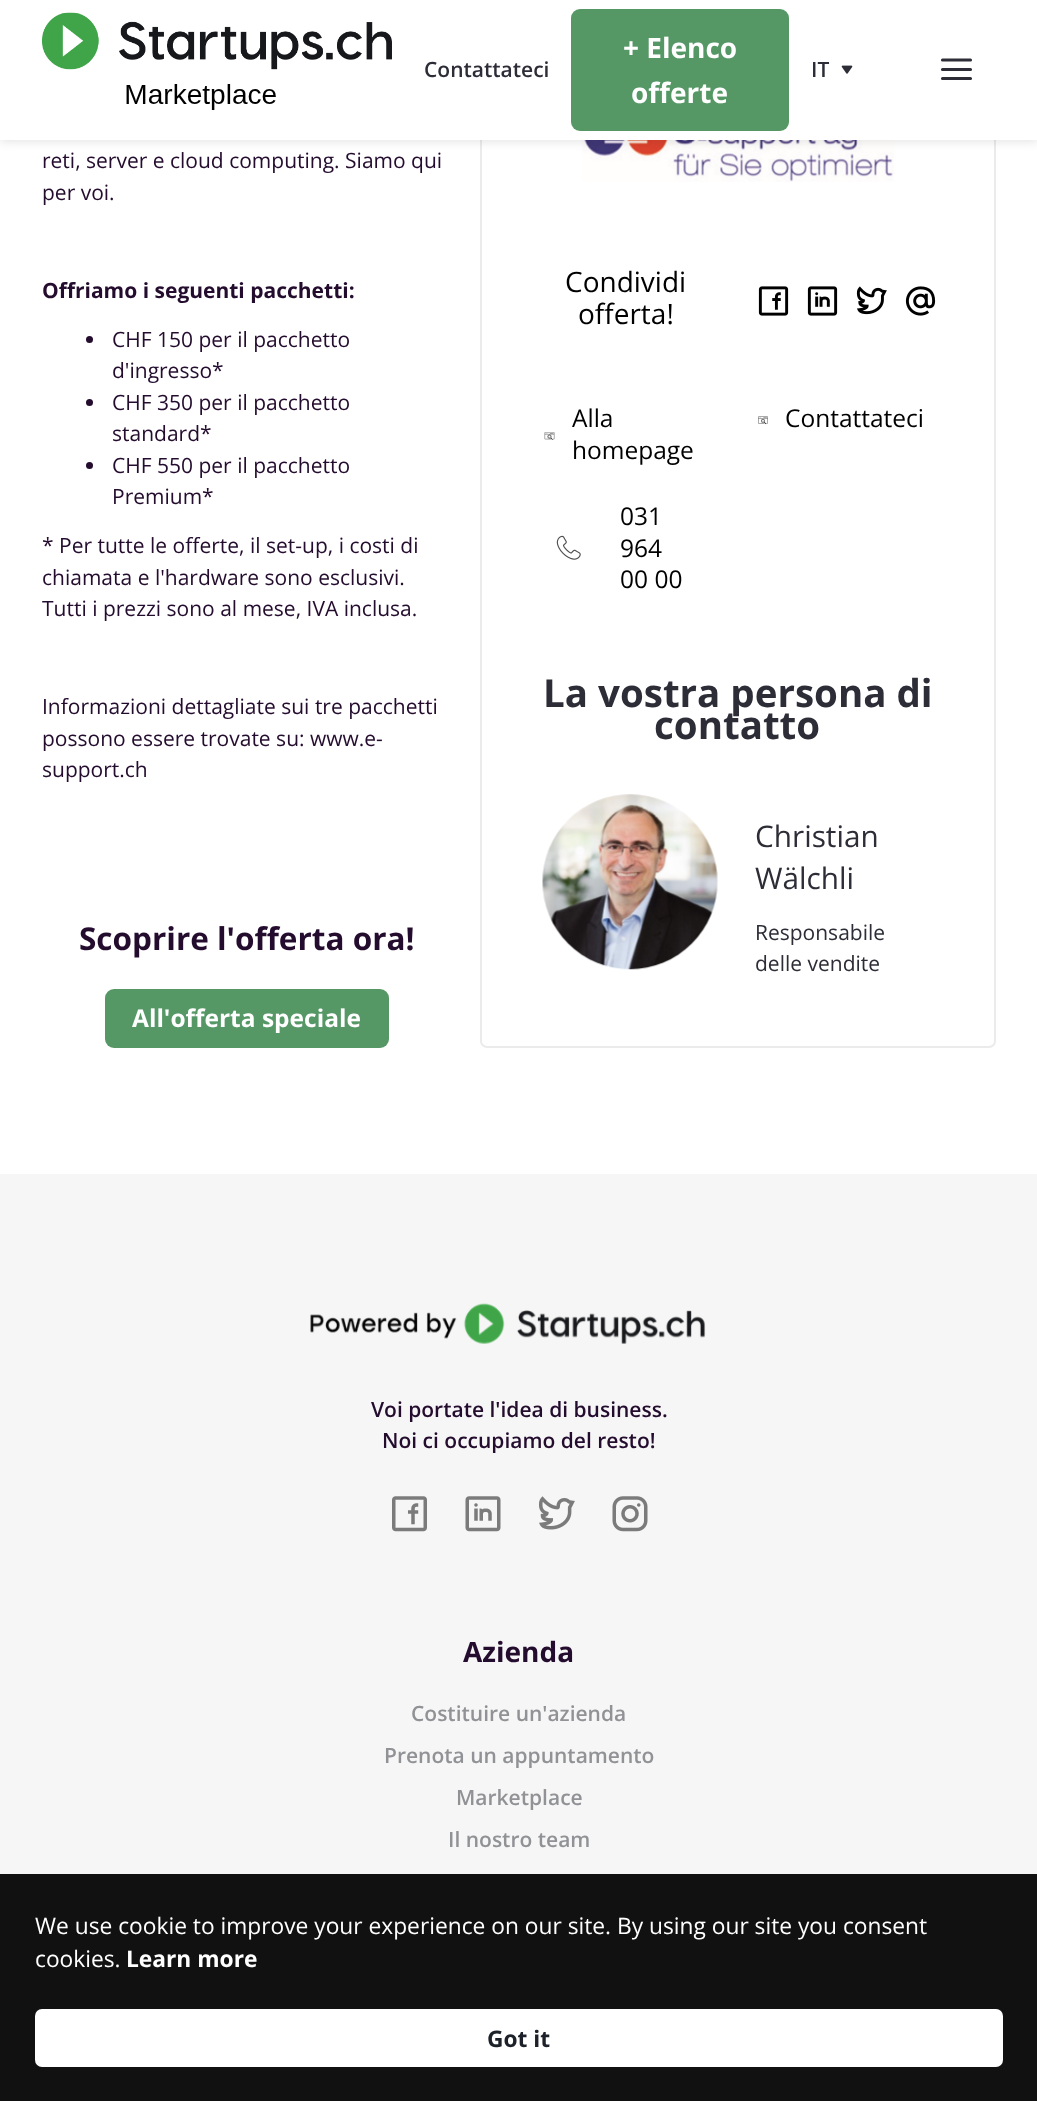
(async () => {
const canvas = document.querySelector("canvas")
canvas.width = 1037
canvas.height = 2101
const c = canvas.getContext("2d")
c.miterLimit = 4
c.fontKerning = "normal"
function T(s,x,y){c.fillText(s,x,y)}
function R(x,y,w,h){c.fillRect(x,y,w,h)}
function Q(x,y,w,h,r){c.beginPath();c.roundRect(x,y,w,h,r);c.fill()}
async function I(src,x,y,w,h){const img=new Image();img.src=src;await img.decode();c.drawImage(img,x,y,w,h)}
let path
c.fillStyle="#fff"
R(0,0,1037,2101)
c.beginPath()
c.roundRect(481,24,514,1023,6)
c.strokeStyle="#ebebeb"
c.lineWidth=2
c.stroke()
await I("3.png",523,140,429,42)
c.fillStyle="#0000001a"
c.filter="blur(5px)"
c.beginPath()
c.rect(0,2,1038,140)
c.fill()
c.filter="none"
c.fillStyle="#fff"
R(0,0,1037,140)
await I("1.png",42,12,350,98)
c.font="600 21px Open Sans"
c.fillStyle="#2c2d36"
T("Contattateci",424,77)
c.fillStyle="#559866"
Q(571,9,218,122,9)
c.font="bold 28px Open Sans"
c.fillStyle="#fff"
T("+ Elenco",623,58)
T("offerte",631,103)
c.font="600 21px Open Sans"
c.fillStyle="#2c2d36"
T("IT",811,77)
await I("2.png",841,65,12,9)
path = new Path2D("M942.5 69.5h28m-28-9.5h28m-28 18.5h28")
c.strokeStyle="#2c2d36"
c.lineWidth=3.1
c.lineCap="round"
c.lineJoin="round"
c.stroke(path)
c.font="21px Open Sans"
c.fillStyle="#240c2e"
T("reti, server e cloud computing. Siamo qui",42,168)
T("per voi.",42,200)
c.font="bold 21px Open Sans"
T("Offriamo i seguenti pacchetti:",42,298)
c.beginPath()
c.arc(89.5,339.5,3.5,0,7)
c.fill()
c.font="21px Open Sans"
T("CHF 150 per il pacchetto",112,347)
T("d'ingresso*",112,378)
c.beginPath()
c.arc(89.5,402.5,3.5,0,7)
c.fill()
T("CHF 350 per il pacchetto",112,410)
T("standard*",112,441)
c.beginPath()
c.arc(89.5,465.5,3.5,0,7)
c.fill()
T("CHF 550 per il pacchetto",112,473)
T("Premium*",112,504)
T("* Per tutte le offerte, il set-up, i costi di",42,553)
T("chiamata e l'hardware sono esclusivi.",42,585)
T("Tutti i prezzi sono al mese, IVA inclusa.",42,616)
T("Informazioni dettagliate sui tre pacchetti",42,714)
T("possono essere trovate su: www.e-",42,746)
T("support.ch",42,777)
c.font="bold 31.5px Open Sans"
T("Scoprire l'offerta ora!",79,950)
c.fillStyle="#559866"
Q(105,989,284,59,9)
c.font="bold 24.5px Open Sans"
c.fillStyle="#fff"
T("All'offerta speciale",132,1027)
c.font="28px Open Sans"
c.fillStyle="#000"
T("Condividi",565,292)
T("offerta!",578,324)
await I("4.png",758,286,31,30)
await I("5.png",807,286,31,30)
await I("6.png",856,286,31,29)
await I("7.png",905,286,31,30)
await I("8.png",544,432,11,8)
c.font="24.5px Open Sans"
T("Alla",572,427)
T("homepage",572,459)
await I("9.png",758,416,10,9)
T("Contattateci",785,427)
await I("10.png",556,535,25,25)
T("031",620,525)
T("964",620,557)
T("00 00",620,588)
c.font="bold 38.5px Open Sans"
c.fillStyle="#2c2d36"
T("La vostra persona di",543,707)
T("contatto",654,739)
await I("11.png",542,794,176,176)
c.font="29.75px Open Sans"
T("Christian",755,847)
T("Wälchli",755,889)
c.font="21px Open Sans"
T("Responsabile",755,940)
T("delle vendite",755,971)
c.fillStyle="#f6f6f6"
R(0,1174,1037,700)
await I("12.png",310,1303,396,41)
c.font="600 21px Open Sans"
c.fillStyle="#240c2e"
T("Voi portate l'idea di business.",371,1417)
T("Noi ci occupiamo del resto!",382,1448)
await I("13.png",392,1496,35,36)
await I("14.png",465,1496,36,36)
await I("15.png",539,1496,36,34)
await I("16.png",612,1496,36,36)
c.font="bold 28px Open Sans"
T("Azienda",463,1662)
c.font="600 21px Open Sans"
c.fillStyle="#919296"
T("Costituire un'azienda",411,1721)
T("Prenota un appuntamento",384,1763)
T("Marketplace",456,1805)
T("Il nostro team",448,1847)
c.fillStyle="#111"
R(0,1874,1037,227)
c.font="22.75px Open Sans"
c.fillStyle="#fff"
T("We use cookie to improve your experience on our site. By using our site you consent",35,1934)
T("cookies.",35,1967)
c.font="bold 22.75px Open Sans"
T("Learn more",126,1967)
Q(35,2009,968,58,7)
c.fillStyle="#1d2129"
T("Got it",487,2047)
})()
